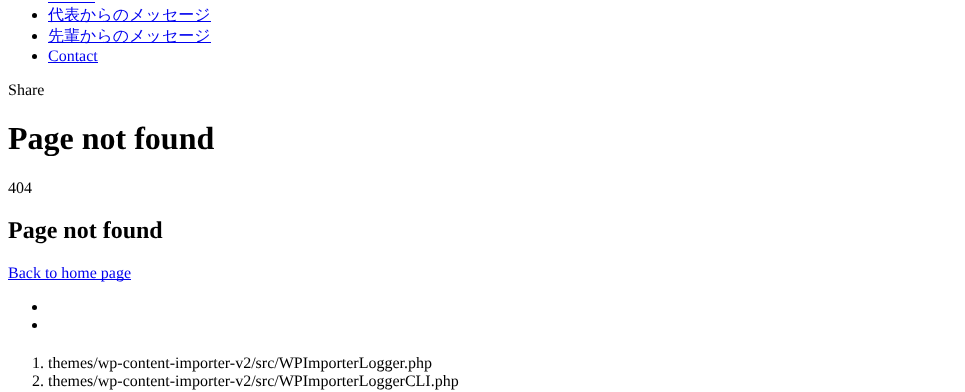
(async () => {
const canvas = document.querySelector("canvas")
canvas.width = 965
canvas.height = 392
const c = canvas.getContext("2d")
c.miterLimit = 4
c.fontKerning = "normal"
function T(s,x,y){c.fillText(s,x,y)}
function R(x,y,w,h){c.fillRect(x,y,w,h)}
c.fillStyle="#fff"
R(0,0,965,392)
c.fillStyle="#00e"
R(48,2,47,1)
c.fillStyle="#000"
c.beginPath()
c.arc(34.5,15.5,2.5,0,7)
c.fill()
c.fillStyle="#00e"
R(48,21,163,1)
c.font="500 16px WenQuanYi Zen Hei"
T("代表からのメッセージ",48,20)
c.fillStyle="#000"
c.beginPath()
c.arc(34.5,36.5,2.5,0,7)
c.fill()
c.fillStyle="#00e"
R(48,42,163,1)
T("先輩からのメッセージ",48,41)
c.fillStyle="#000"
c.beginPath()
c.arc(34.5,56.5,2.5,0,7)
c.fill()
c.font="16px Liberation Serif"
c.fillStyle="#00e"
T("Contact",48,61)
R(48,62,50,1)
c.fillStyle="#000"
T("Share",8,95)
c.font="bold 32px Liberation Serif"
T("Page not found",8,149)
c.font="16px Liberation Serif"
T("404",8,193)
c.font="bold 24px Liberation Serif"
T("Page not found",8,238)
c.fillStyle="#00e"
R(8,279,123,1)
c.font="16px Liberation Serif"
T("Back to home page",8,278)
c.fillStyle="#000"
c.beginPath()
c.arc(34.5,307.5,2.5,0,7)
c.fill()
c.beginPath()
c.arc(34.5,325.5,2.5,0,7)
c.fill()
T("1. themes/wp-content-importer-v2/src/WPImporterLogger.php",32,368)
T("2. themes/wp-content-importer-v2/src/WPImporterLoggerCLI.php",32,386)
})()
